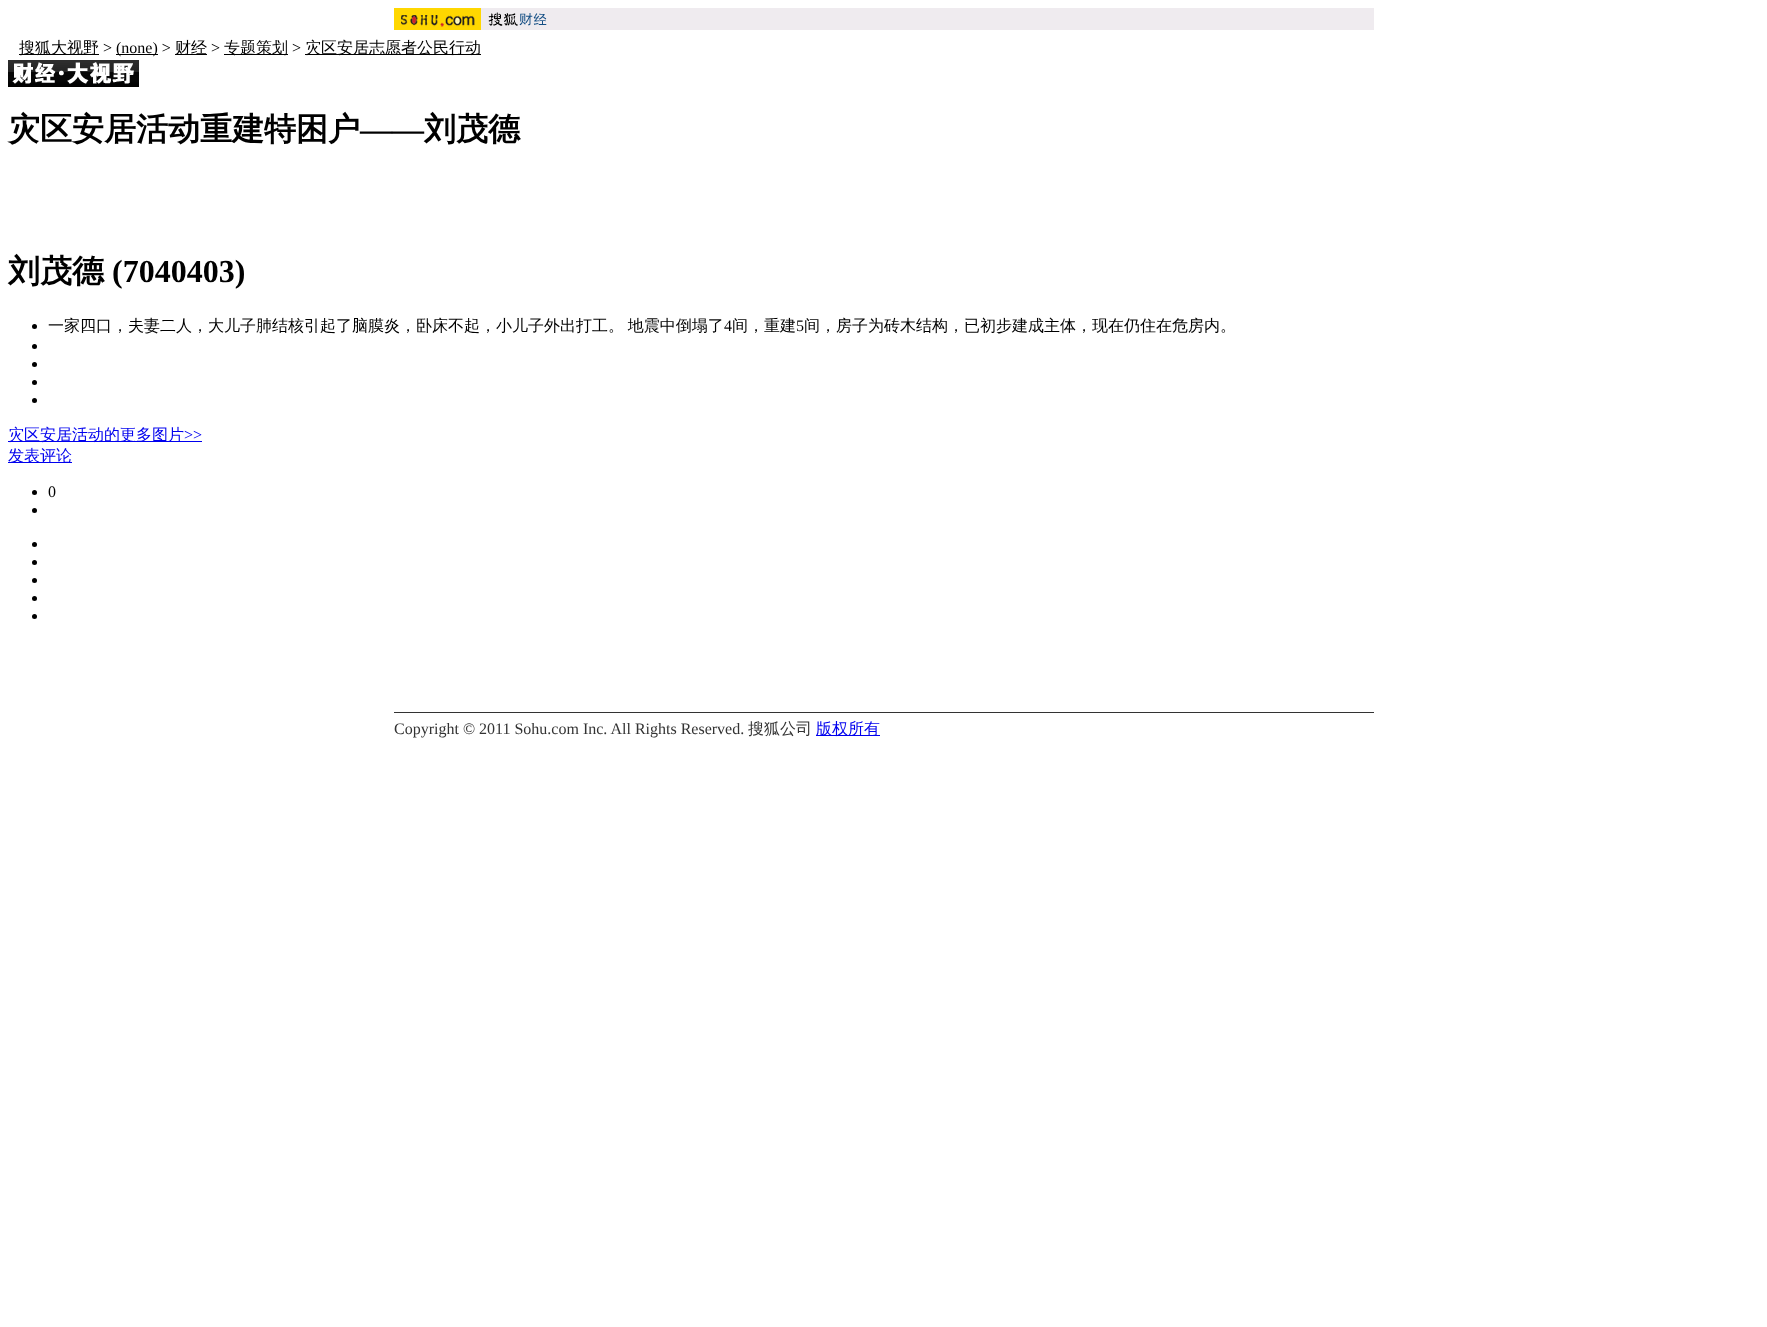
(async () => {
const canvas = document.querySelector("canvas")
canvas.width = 1767
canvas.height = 1327
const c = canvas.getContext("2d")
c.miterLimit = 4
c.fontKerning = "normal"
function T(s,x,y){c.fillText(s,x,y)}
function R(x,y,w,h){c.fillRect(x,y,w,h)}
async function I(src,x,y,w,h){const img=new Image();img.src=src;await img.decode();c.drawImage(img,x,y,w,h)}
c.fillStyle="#fff"
R(0,0,1767,1327)
c.fillStyle="#efebef"
R(481,8,893,22)
await I("1.png",394,8,87,22)
await I("2.png",488,12,59,14)
c.fillStyle="#000"
R(19,54,80,1)
c.font="500 16px WenQuanYi Zen Hei"
T("搜狐大视野",19,53)
c.font="16px Liberation Serif"
T(">",103,53)
R(116,54,42,1)
T("(none) >",116,53)
R(175,54,32,1)
c.font="500 16px WenQuanYi Zen Hei"
T("财经",175,53)
c.font="16px Liberation Serif"
T(">",211,53)
R(224,54,64,1)
c.font="500 16px WenQuanYi Zen Hei"
T("专题策划",224,53)
c.font="16px Liberation Serif"
T(">",292,53)
R(305,54,176,1)
c.font="500 16px WenQuanYi Zen Hei"
T("灾区安居志愿者公民行动",305,53)
await I("3.png",8,60,131,27)
c.font="bold 32px WenQuanYi Zen Hei"
T("灾区安居活动重建特困户",8,140)
c.font="bold 32px Liberation Serif"
T("——",360,140)
c.font="bold 32px WenQuanYi Zen Hei"
T("刘茂德",424,140)
T("刘茂德",8,282)
c.font="bold 32px Liberation Serif"
T("(7040403)",112,282)
c.beginPath()
c.arc(34.5,326.5,2.5,0,7)
c.fill()
c.wordSpacing="-1px"
c.font="500 16px WenQuanYi Zen Hei"
T("一家四口，夫妻二人，大儿子肺结核引起了脑膜炎，卧床不起，小儿子外出打工。 地震中倒塌了",48,331)
c.wordSpacing="0px"
c.font="16px Liberation Serif"
T("4",724,331)
c.font="500 16px WenQuanYi Zen Hei"
T("间，重建",732,331)
c.font="16px Liberation Serif"
T("5",796,331)
c.font="500 16px WenQuanYi Zen Hei"
T("间，房子为砖木结构，已初步建成主体，现在仍住在危房内。",804,331)
c.beginPath()
c.arc(34.5,346.5,2.5,0,7)
c.fill()
c.beginPath()
c.arc(34.5,364.5,2.5,0,7)
c.fill()
c.beginPath()
c.arc(34.5,382.5,2.5,0,7)
c.fill()
c.beginPath()
c.arc(34.5,400.5,2.5,0,7)
c.fill()
c.fillStyle="#00e"
R(8,441,194,1)
T("灾区安居活动的更多图片",8,440)
c.font="16px Liberation Serif"
T(">>",184,440)
R(8,462,64,1)
c.font="500 16px WenQuanYi Zen Hei"
T("发表评论",8,461)
c.fillStyle="#000"
c.beginPath()
c.arc(34.5,492.5,2.5,0,7)
c.fill()
c.font="16px Liberation Serif"
T("0",48,497)
c.beginPath()
c.arc(34.5,510.5,2.5,0,7)
c.fill()
c.beginPath()
c.arc(34.5,544.5,2.5,0,7)
c.fill()
c.beginPath()
c.arc(34.5,562.5,2.5,0,7)
c.fill()
c.beginPath()
c.arc(34.5,580.5,2.5,0,7)
c.fill()
c.beginPath()
c.arc(34.5,598.5,2.5,0,7)
c.fill()
c.beginPath()
c.arc(34.5,616.5,2.5,0,7)
c.fill()
c.fillStyle="#333"
R(394,712,980,1)
T("Copyright © 2011 Sohu.com Inc. All Rights Reserved.",394,734)
c.font="500 16px WenQuanYi Zen Hei"
T("搜狐公司",748,734)
c.fillStyle="#00e"
R(816,735,64,1)
T("版权所有",816,734)
})()
